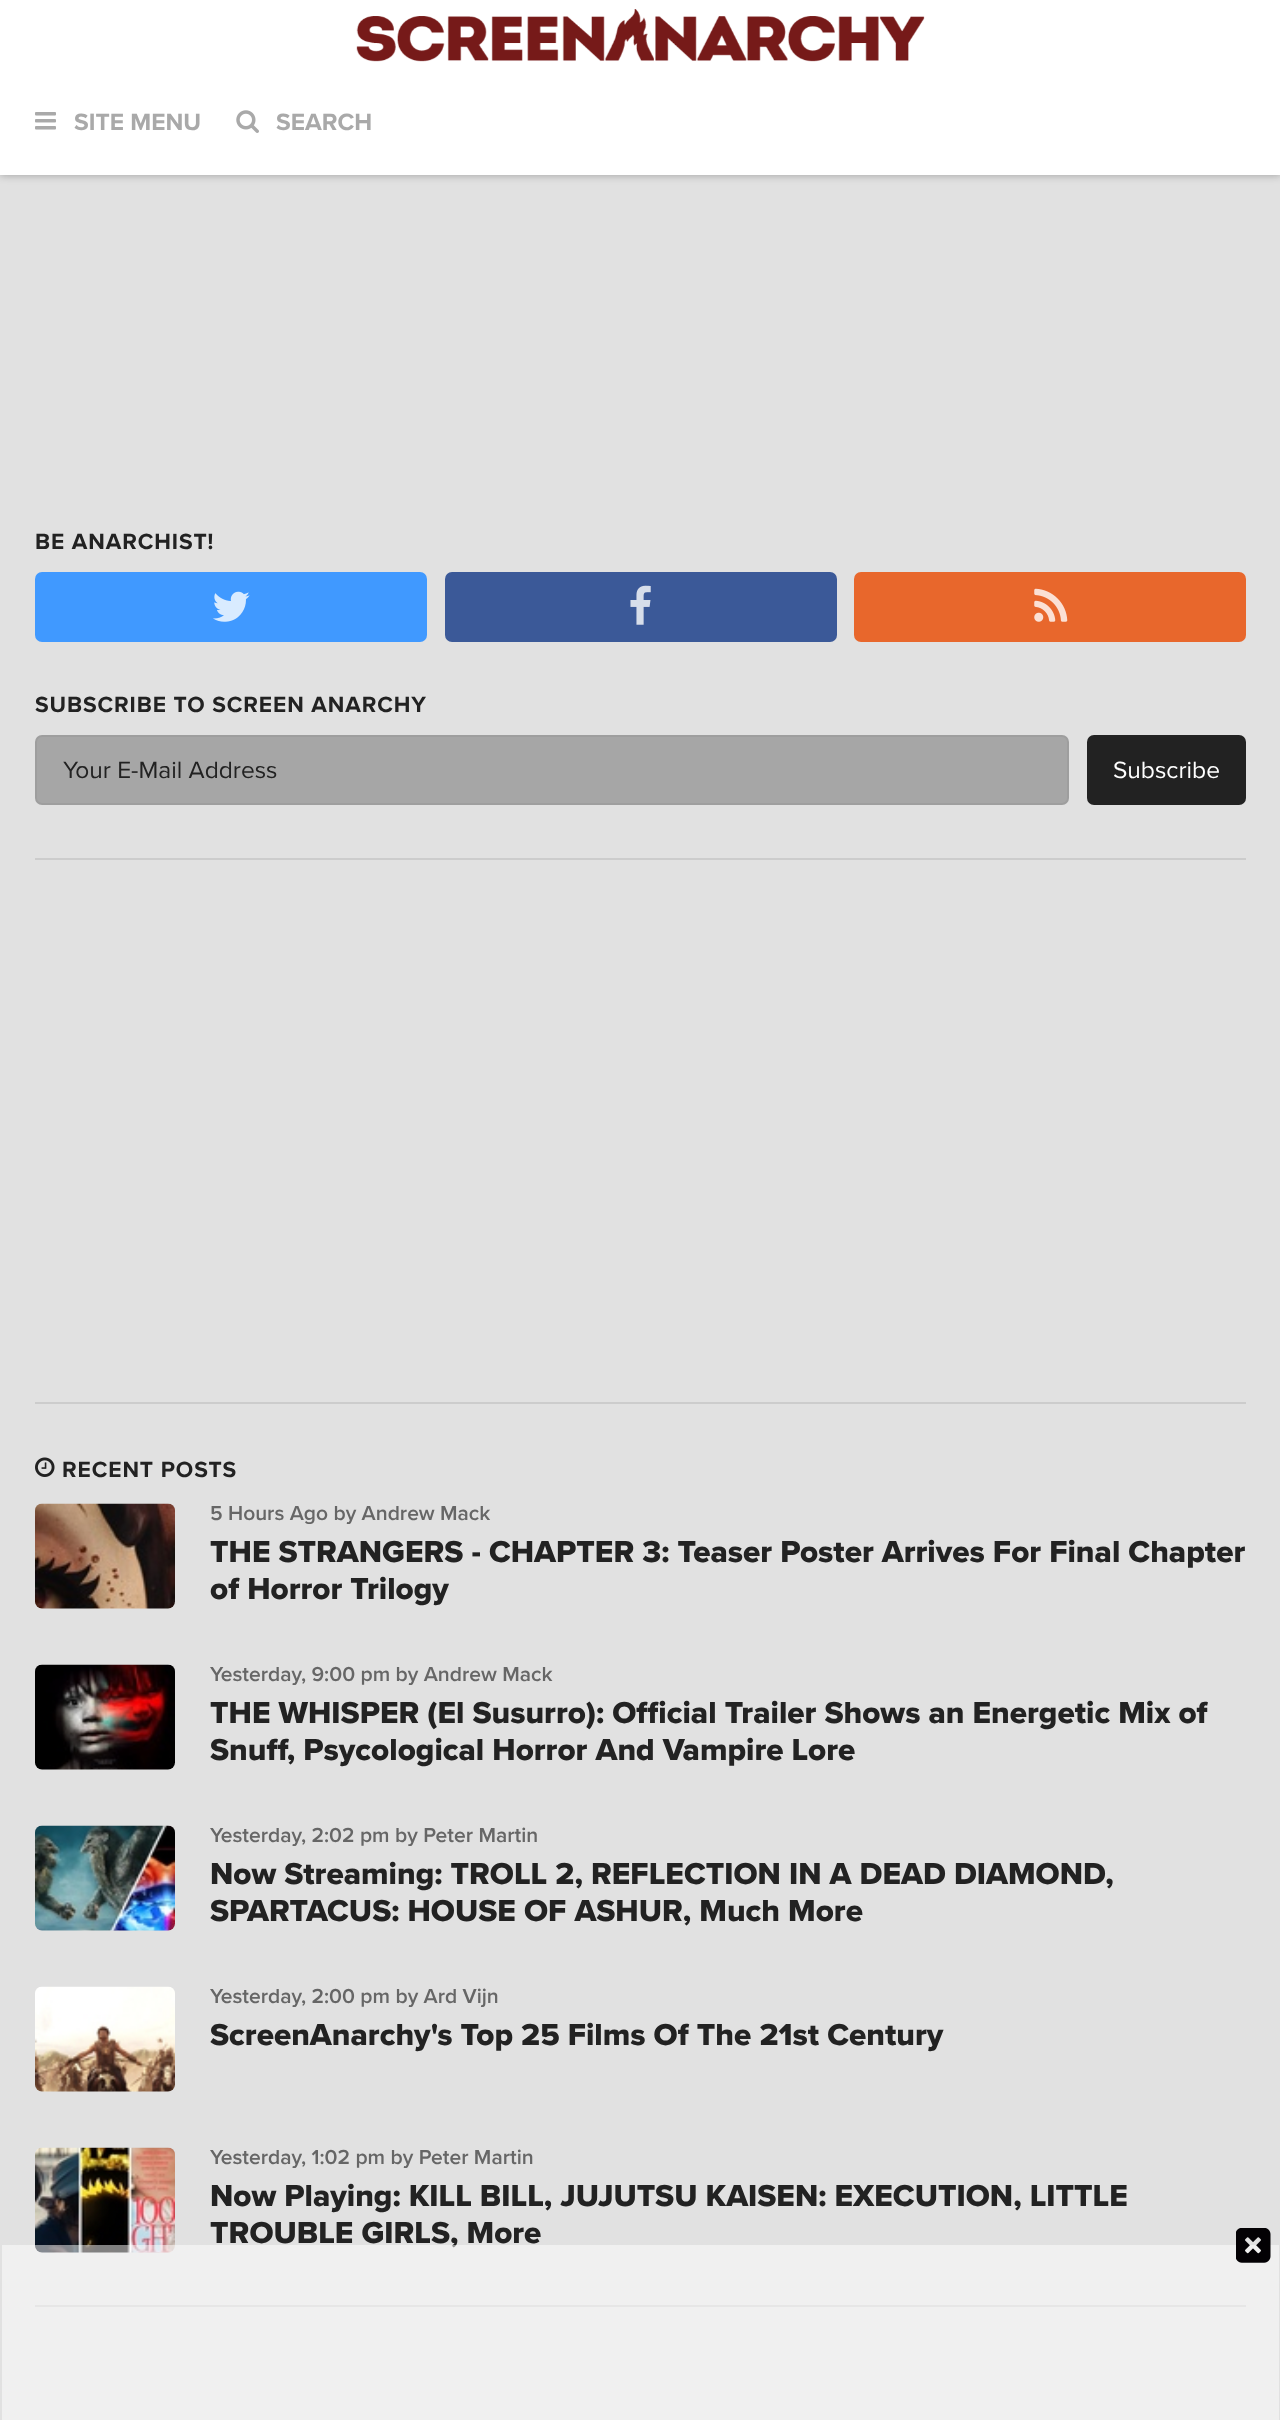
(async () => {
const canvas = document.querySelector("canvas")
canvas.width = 1280
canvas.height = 2420
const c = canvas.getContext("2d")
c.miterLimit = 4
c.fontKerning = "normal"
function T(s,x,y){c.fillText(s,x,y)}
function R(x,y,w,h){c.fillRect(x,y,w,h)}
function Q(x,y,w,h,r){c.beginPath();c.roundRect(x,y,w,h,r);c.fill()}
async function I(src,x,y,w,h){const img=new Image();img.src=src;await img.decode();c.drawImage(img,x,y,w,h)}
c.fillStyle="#e1e1e1"
R(0,0,1280,2420)
c.fillStyle="#0000004d"
c.filter="blur(4.5px)"
c.beginPath()
c.rect(0,0,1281,175)
c.fill()
c.filter="none"
c.fillStyle="#fff"
R(0,0,1280,175)
await I("1.png",356,9,569,53)
await I("2.png",35,112,21,18)
c.font="bold 24.5px Proxima Nova"
c.fillStyle="#a9a9a9"
T("SITE MENU",74,130)
await I("3.png",236,110,23,23)
T("SEARCH",276,130)
c.letterSpacing="0.9px"
c.font="bold 22.75px Proxima Nova"
c.fillStyle="#222"
T("BE ANARCHIST!",35,549)
c.fillStyle="#4099ff"
Q(35,572,392,70,7)
await I("4.png",213,591,37,31)
c.fillStyle="#3b5998"
Q(445,572,392,70,7)
await I("5.png",630,585,21,40)
c.fillStyle="#e8672c"
Q(854,572,392,70,7)
await I("6.png",1034,588,34,34)
c.fillStyle="#222"
T("SUBSCRIBE TO SCREEN ANARCHY",35,712)
c.fillStyle="#a6a6a6"
c.beginPath()
c.roundRect(36,736,1032,68,6)
c.fill()
c.strokeStyle="#9e9e9e"
c.lineWidth=2
c.stroke()
c.letterSpacing="0px"
c.font="24.5px Proxima Nova"
c.fillStyle="#222"
T("Your E-Mail Address",63,778)
Q(1087,735,159,70,7)
c.fillStyle="#fff"
T("Subscribe",1113,778)
c.fillStyle="#ccc"
R(35,858,1211,2)
R(35,1402,1211,2)
await I("7.png",35,1457,20,20)
c.letterSpacing="0.9px"
c.font="bold 22.75px Proxima Nova"
c.fillStyle="#222"
T("RECENT POSTS",62,1477)
await I("8.png",35,1503,140,106)
c.letterSpacing="0px"
c.font="600 21px Proxima Nova"
c.fillStyle="#666"
T("5 Hours Ago by Andrew Mack",210,1520)
c.font="800 31.5px Proxima Nova"
c.fillStyle="#222"
T("THE STRANGERS - CHAPTER 3: Teaser Poster Arrives For Final Chapter",210,1562)
T("of Horror Trilogy",210,1599)
await I("9.png",35,1664,140,106)
c.font="600 21px Proxima Nova"
c.fillStyle="#666"
T("Yesterday, 9:00 pm by Andrew Mack",210,1681)
c.font="800 31.5px Proxima Nova"
c.fillStyle="#222"
T("THE WHISPER (El Susurro): Official Trailer Shows an Energetic Mix of",210,1723)
T("Snuff, Psycological Horror And Vampire Lore",210,1760)
await I("10.png",35,1825,140,106)
c.font="600 21px Proxima Nova"
c.fillStyle="#666"
T("Yesterday, 2:02 pm by Peter Martin",210,1842)
c.font="800 31.5px Proxima Nova"
c.fillStyle="#222"
T("Now Streaming: TROLL 2, REFLECTION IN A DEAD DIAMOND,",210,1884)
T("SPARTACUS: HOUSE OF ASHUR, Much More",210,1921)
await I("11.png",35,1986,140,106)
c.font="600 21px Proxima Nova"
c.fillStyle="#666"
T("Yesterday, 2:00 pm by Ard Vijn",210,2003)
c.font="800 31.5px Proxima Nova"
c.fillStyle="#222"
T("ScreenAnarchy's Top 25 Films Of The 21st Century",210,2045)
await I("12.png",35,2147,140,106)
c.font="600 21px Proxima Nova"
c.fillStyle="#666"
T("Yesterday, 1:02 pm by Peter Martin",210,2164)
c.font="800 31.5px Proxima Nova"
c.fillStyle="#222"
T("Now Playing: KILL BILL, JUJUTSU KAISEN: EXECUTION, LITTLE",210,2206)
T("TROUBLE GIRLS, More",210,2243)
c.fillStyle="#ccc"
R(35,2305,1211,2)
c.fillStyle="#ffffff80"
R(2,2245,1277,175)
await I("13.png",1236,2228,35,35)
})()
